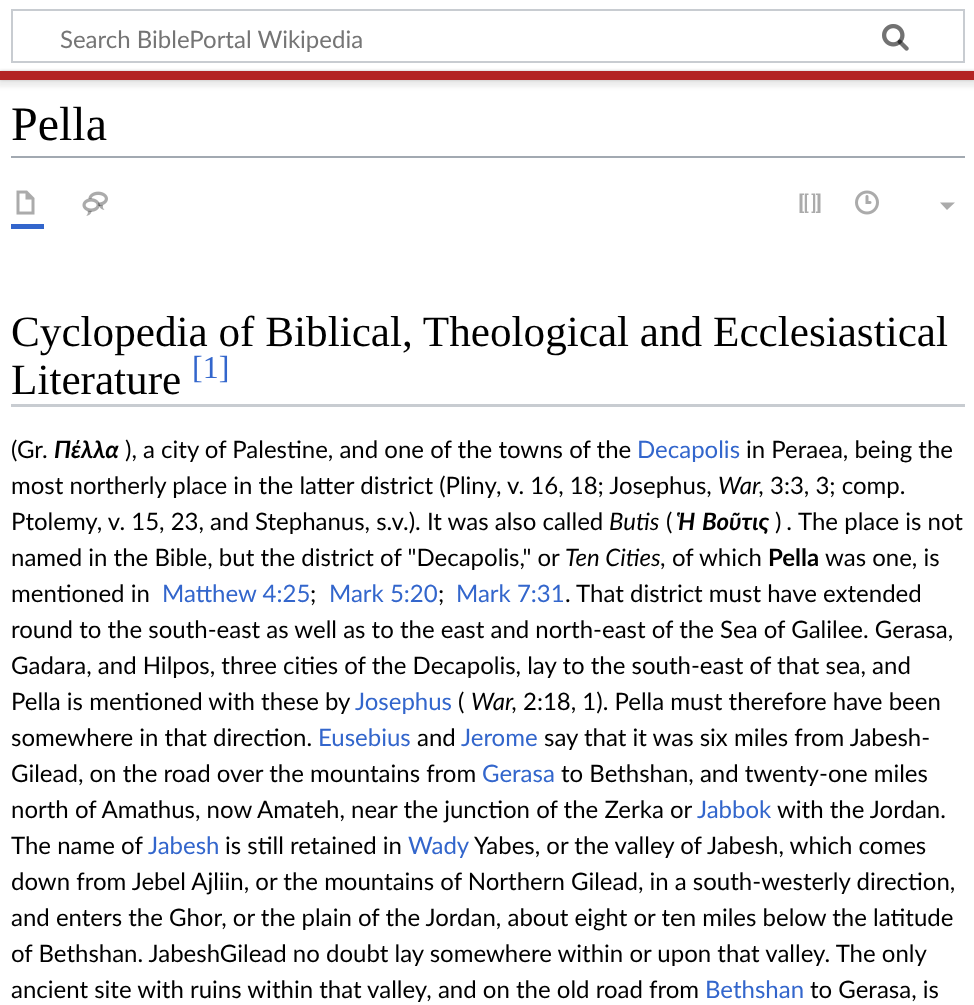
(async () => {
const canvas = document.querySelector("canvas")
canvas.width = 974
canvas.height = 1005
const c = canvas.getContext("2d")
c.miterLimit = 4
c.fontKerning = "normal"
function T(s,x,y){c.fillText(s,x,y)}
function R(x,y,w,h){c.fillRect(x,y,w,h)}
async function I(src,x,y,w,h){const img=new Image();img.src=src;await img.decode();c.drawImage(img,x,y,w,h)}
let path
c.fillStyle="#fff"
R(0,0,974,1005)
c.strokeStyle="#c8ccd1"
c.lineWidth=2
c.strokeRect(12,10,952,52)
await I("1.png",882,24,27,27)
c.font="24px Lato"
c.fillStyle="#757575"
T("Search BiblePortal Wikipedia",60,48)
await I("2.png",882,24,27,27)
c.fillStyle="#00000033"
c.filter="blur(1.5px)"
c.beginPath()
c.rect(0,71,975,9)
c.fill()
c.filter="none"
c.fillStyle="#00000012"
c.filter="blur(2px)"
c.beginPath()
c.rect(-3,72,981,15)
c.fill()
c.filter="none"
c.fillStyle="#b32424"
R(0,71,974,9)
c.fillStyle="#a2a9b1"
R(11,156,954,2)
c.font="48px Liberation Serif"
c.fillStyle="#000"
T("Pella",11,140)
c.fillStyle="#36c"
R(11,224,33,5)
await I("3.png",16,190,19,25)
await I("4.png",82,191,26,25)
await I("5.png",799,193,22,20)
await I("6.png",855,190,24,25)
c.fillStyle="#ababab"
path = new Path2D("M955 202.5l-8 7.5l-7-7.5z")
c.fill(path)
c.font="43.2px Liberation Serif"
c.fillStyle="#000"
T("Cyclopedia of Biblical, Theological and Ecclesiastical",11,346)
T("Literature",11,394)
c.font="32px Liberation Serif"
c.fillStyle="#36c"
T("[1]",192,378)
c.fillStyle="#c8ccd1"
R(11,404,954,3)
c.font="24px Lato"
c.fillStyle="#000"
T("(Gr.",11,458)
c.font="italic bold 24px Lato"
T("Πέλλα",54,458)
c.font="24px Lato"
T("), a city of Palestine, and one of the towns of the",125,458)
c.fillStyle="#36c"
T("Decapolis",637,458)
c.fillStyle="#000"
T("in Peraea, being the",746,458)
T("most northerly place in the latter district (Pliny, v. 16, 18; Josephus,",11,494)
c.font="italic 24px Lato"
T("War,",718,494)
c.font="24px Lato"
T("3:3, 3; comp.",770,494)
T("Ptolemy, v. 15, 23, and Stephanus, s.v.). It was also called",11,530)
c.font="italic 24px Lato"
T("Butis",609,530)
c.font="24px Lato"
T("(",666,530)
c.font="italic bold 24px Lato"
T("Ἡ",678,530)
T("Βοῦτις",702,530)
c.font="24px Lato"
T(")",775,530)
c.font="italic 24px Lato"
T(".",787,530)
c.font="24px Lato"
T("The place is not",798,530)
T("named in the Bible, but the district of \"Decapolis,\" or",11,566)
c.font="italic 24px Lato"
T("Ten Cities,",565,566)
c.font="24px Lato"
T("of which",672,566)
c.font="bold 24px Lato"
T("Pella",768,566)
c.font="24px Lato"
T("was one, is",825,566)
T("mentioned in",11,602)
c.fillStyle="#36c"
T("Matthew 4:25",162,602)
c.fillStyle="#000"
T(";",310,602)
c.fillStyle="#36c"
T("Mark 5:20",329,602)
c.fillStyle="#000"
T(";",438,602)
c.fillStyle="#36c"
T("Mark 7:31",456,602)
c.fillStyle="#000"
T(". That district must have extended",565,602)
T("round to the south-east as well as to the east and north-east of the Sea of Galilee. Gerasa,",11,638)
T("Gadara, and Hilpos, three cities of the Decapolis, lay to the south-east of that sea, and",11,674)
T("Pella is mentioned with these by",11,710)
c.fillStyle="#36c"
T("Josephus",355,710)
c.fillStyle="#000"
T("(",458,710)
c.font="italic 24px Lato"
T("War,",471,710)
c.font="24px Lato"
T("2:18, 1). Pella must therefore have been",523,710)
T("somewhere in that direction.",11,746)
c.fillStyle="#36c"
T("Eusebius",318,746)
c.fillStyle="#000"
T("and",417,746)
c.fillStyle="#36c"
T("Jerome",461,746)
c.fillStyle="#000"
T("say that it was six miles from Jabesh-",544,746)
T("Gilead, on the road over the mountains from",11,782)
c.fillStyle="#36c"
T("Gerasa",482,782)
c.fillStyle="#000"
T("to Bethshan, and twenty-one miles",561,782)
T("north of Amathus, now Amateh, near the junction of the Zerka or",11,818)
c.fillStyle="#36c"
T("Jabbok",697,818)
c.fillStyle="#000"
T("with the Jordan.",777,818)
T("The name of",11,854)
c.fillStyle="#36c"
T("Jabesh",148,854)
c.fillStyle="#000"
T("is still retained in",225,854)
c.fillStyle="#36c"
T("Wady",408,854)
c.fillStyle="#000"
T("Yabes, or the valley of Jabesh, which comes",474,854)
T("down from Jebel Ajliin, or the mountains of Northern Gilead, in a south-westerly direction,",11,890)
T("and enters the Ghor, or the plain of the Jordan, about eight or ten miles below the latitude",11,926)
T("of Bethshan. JabeshGilead no doubt lay somewhere within or upon that valley. The only",11,962)
T("ancient site with ruins within that valley, and on the old road from",11,998)
c.fillStyle="#36c"
T("Bethshan",705,998)
c.fillStyle="#000"
T("to Gerasa, is",810,998)
})()
